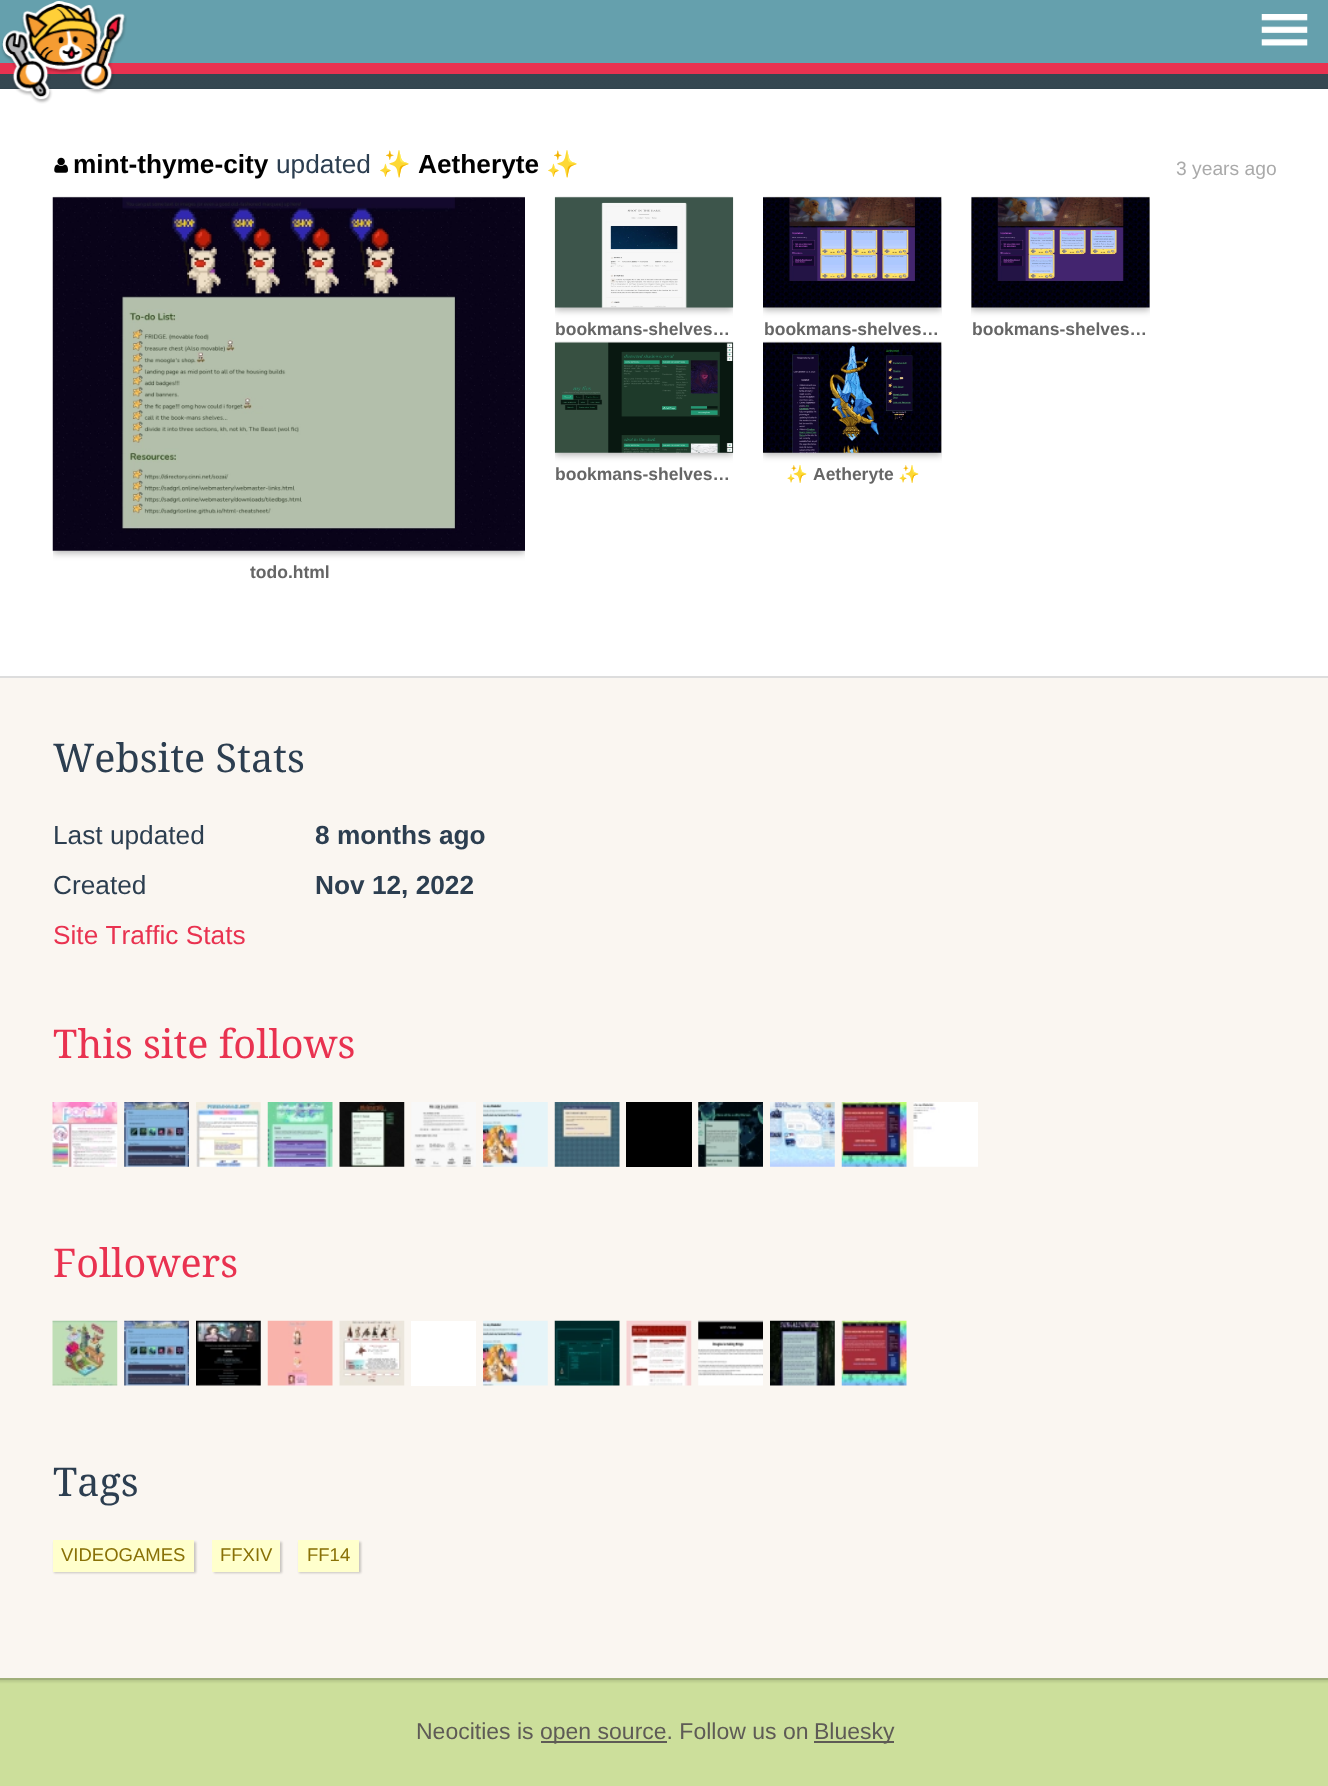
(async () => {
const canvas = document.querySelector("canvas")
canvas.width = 1328
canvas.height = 1786
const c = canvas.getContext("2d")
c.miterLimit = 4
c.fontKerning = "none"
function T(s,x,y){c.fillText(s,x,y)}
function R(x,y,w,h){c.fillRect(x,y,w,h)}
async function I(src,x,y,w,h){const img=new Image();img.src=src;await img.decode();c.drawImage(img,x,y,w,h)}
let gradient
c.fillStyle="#ccdf9b"
R(0,0,1328,1786)
c.fillStyle="#65a0ad"
R(0,0,1328,63)
c.fillStyle="#e93250"
R(0,63,1328,11)
gradient = c.createLinearGradient(664,-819,664,89)
gradient.addColorStop(0,"#2b3c43")
gradient.addColorStop(1,"#354751")
c.fillStyle = gradient
R(0,74,1328,15)
c.fillStyle="#b3c388"
R(0,1678,1328,2)
c.fillStyle="#0000001a"
c.filter="blur(1px)"
c.beginPath()
c.rect(-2,89,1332,1593)
c.fill()
c.filter="none"
c.fillStyle="#fff"
R(0,89,1328,587)
await I("1.png",1,1,126,103)
await I("2.png",1261,14,47,32)
c.fillStyle="#faf6f1"
R(0,678,1328,1000)
c.fillStyle="#ddd"
R(0,676,1328,2)
await I("3.png",54,157,14,16)
c.font="bold 26.25px Liberation Sans"
c.fillStyle="#000"
T("mint-thyme-city",73,173)
c.font="26.25px Liberation Sans"
c.fillStyle="#2c3e50"
T("updated",276,173)
c.font="bold 26.25px Noto Color Emoji"
c.fillStyle="#000"
T("✨",378,173)
c.font="bold 26.25px Liberation Sans"
T("Aetheryte",418,173)
c.font="bold 26.25px Noto Color Emoji"
T("✨",546,173)
c.font="19.25px Liberation Sans"
c.fillStyle="#aaa"
T("3 years ago",1176,175)
c.save()
c.beginPath()
c.rect(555,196,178,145)
c.clip()
c.fillStyle="#0000004d"
c.filter="blur(3.5px)"
c.beginPath()
c.rect(555,200,178,110)
c.fill()
c.filter="none"
c.restore()
await I("4.png",554,197,180,111)
c.font="bold 17.5px Liberation Sans"
c.fillStyle="#666"
T("bookmans-shelves…",555,335)
c.save()
c.beginPath()
c.rect(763,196,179,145)
c.clip()
c.fillStyle="#0000004d"
c.filter="blur(3.5px)"
c.beginPath()
c.rect(763,200,179,110)
c.fill()
c.filter="none"
c.restore()
await I("5.png",763,197,179,111)
T("bookmans-shelves…",764,335)
c.save()
c.beginPath()
c.rect(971,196,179,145)
c.clip()
c.fillStyle="#0000004d"
c.filter="blur(3.5px)"
c.beginPath()
c.rect(971,200,179,110)
c.fill()
c.filter="none"
c.restore()
await I("6.png",971,197,179,111)
T("bookmans-shelves…",972,335)
c.save()
c.beginPath()
c.rect(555,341,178,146)
c.clip()
c.fillStyle="#0000004d"
c.filter="blur(3.5px)"
c.beginPath()
c.rect(555,345,178,110)
c.fill()
c.filter="none"
c.restore()
await I("7.png",554,342,180,111)
T("bookmans-shelves…",555,480)
c.save()
c.beginPath()
c.rect(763,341,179,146)
c.clip()
c.fillStyle="#0000004d"
c.filter="blur(3.5px)"
c.beginPath()
c.rect(763,345,179,110)
c.fill()
c.filter="none"
c.restore()
await I("8.png",763,342,179,111)
c.font="bold 17.5px Noto Color Emoji"
T("✨",786,480)
c.font="bold 17.5px Liberation Sans"
T("Aetheryte",813,480)
c.font="bold 17.5px Noto Color Emoji"
T("✨",898,480)
c.save()
c.beginPath()
c.rect(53,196,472,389)
c.clip()
c.fillStyle="#0000004d"
c.filter="blur(3.5px)"
c.beginPath()
c.rect(53,200,472,353)
c.fill()
c.filter="none"
c.restore()
await I("9.png",52,197,473,354)
c.font="bold 17.5px Liberation Sans"
T("todo.html",250,578)
c.font="39.5px Droid Serif"
c.fillStyle="#2c3e50"
T("Website Stats",53,772)
c.font="26.25px Liberation Sans"
T("Last updated",53,844)
c.font="bold 26.25px Liberation Sans"
T("8 months ago",315,844)
c.font="26.25px Liberation Sans"
T("Created",53,894)
c.font="bold 26.25px Liberation Sans"
T("Nov 12, 2022",315,894)
c.font="26.25px Liberation Sans"
c.fillStyle="#e93250"
T("Site Traffic Stats",53,944)
c.font="39.5px Droid Serif"
T("This site follows",53,1058)
await I("10.png",52,1102,66,65)
await I("11.png",124,1102,65,65)
await I("12.png",196,1102,65,65)
await I("13.png",267,1102,66,65)
await I("14.png",339,1102,66,65)
await I("15.png",411,1102,65,65)
await I("16.png",483,1102,65,65)
await I("17.png",554,1102,66,65)
c.fillStyle="#000"
R(626,1102,66,65)
await I("18.png",698,1102,65,65)
await I("19.png",770,1102,65,65)
await I("20.png",841,1102,66,65)
await I("21.png",913,1102,65,65)
c.fillStyle="#e93250"
T("Followers",53,1277)
await I("22.png",52,1320,66,66)
await I("23.png",124,1320,65,66)
await I("24.png",196,1320,65,66)
await I("25.png",267,1320,66,66)
await I("26.png",339,1320,66,66)
c.fillStyle="#fff"
R(411,1321,65,65)
await I("27.png",483,1320,65,66)
await I("28.png",554,1320,66,66)
await I("29.png",626,1320,66,66)
await I("30.png",698,1320,65,66)
await I("31.png",770,1320,65,66)
await I("32.png",841,1320,66,66)
c.fillStyle="#2c3e50"
T("Tags",53,1496)
c.fillStyle="#00000033"
c.filter="blur(1px)"
c.beginPath()
c.rect(54,1542,142,31)
c.fill()
c.filter="none"
c.fillStyle="#ffc"
R(53,1540,141,32)
c.font="18.5px Liberation Sans"
c.fillStyle="#897106"
T("VIDEOGAMES",61,1561)
c.fillStyle="#00000033"
c.filter="blur(1px)"
c.beginPath()
c.rect(214,1542,68,31)
c.fill()
c.filter="none"
c.fillStyle="#ffc"
R(212,1540,68,32)
c.fillStyle="#897106"
T("FFXIV",220,1561)
c.fillStyle="#00000033"
c.filter="blur(1px)"
c.beginPath()
c.rect(299,1542,62,31)
c.fill()
c.filter="none"
c.fillStyle="#ffc"
R(298,1540,61,32)
c.fillStyle="#897106"
T("FF14",307,1561)
c.font="23px Liberation Sans"
c.fillStyle="#5e5b56"
T("Neocities is",416,1739)
R(541,1741,126,2)
T("open source. Follow us on",540,1739)
R(814,1741,80,2)
T("Bluesky",814,1739)
})()
